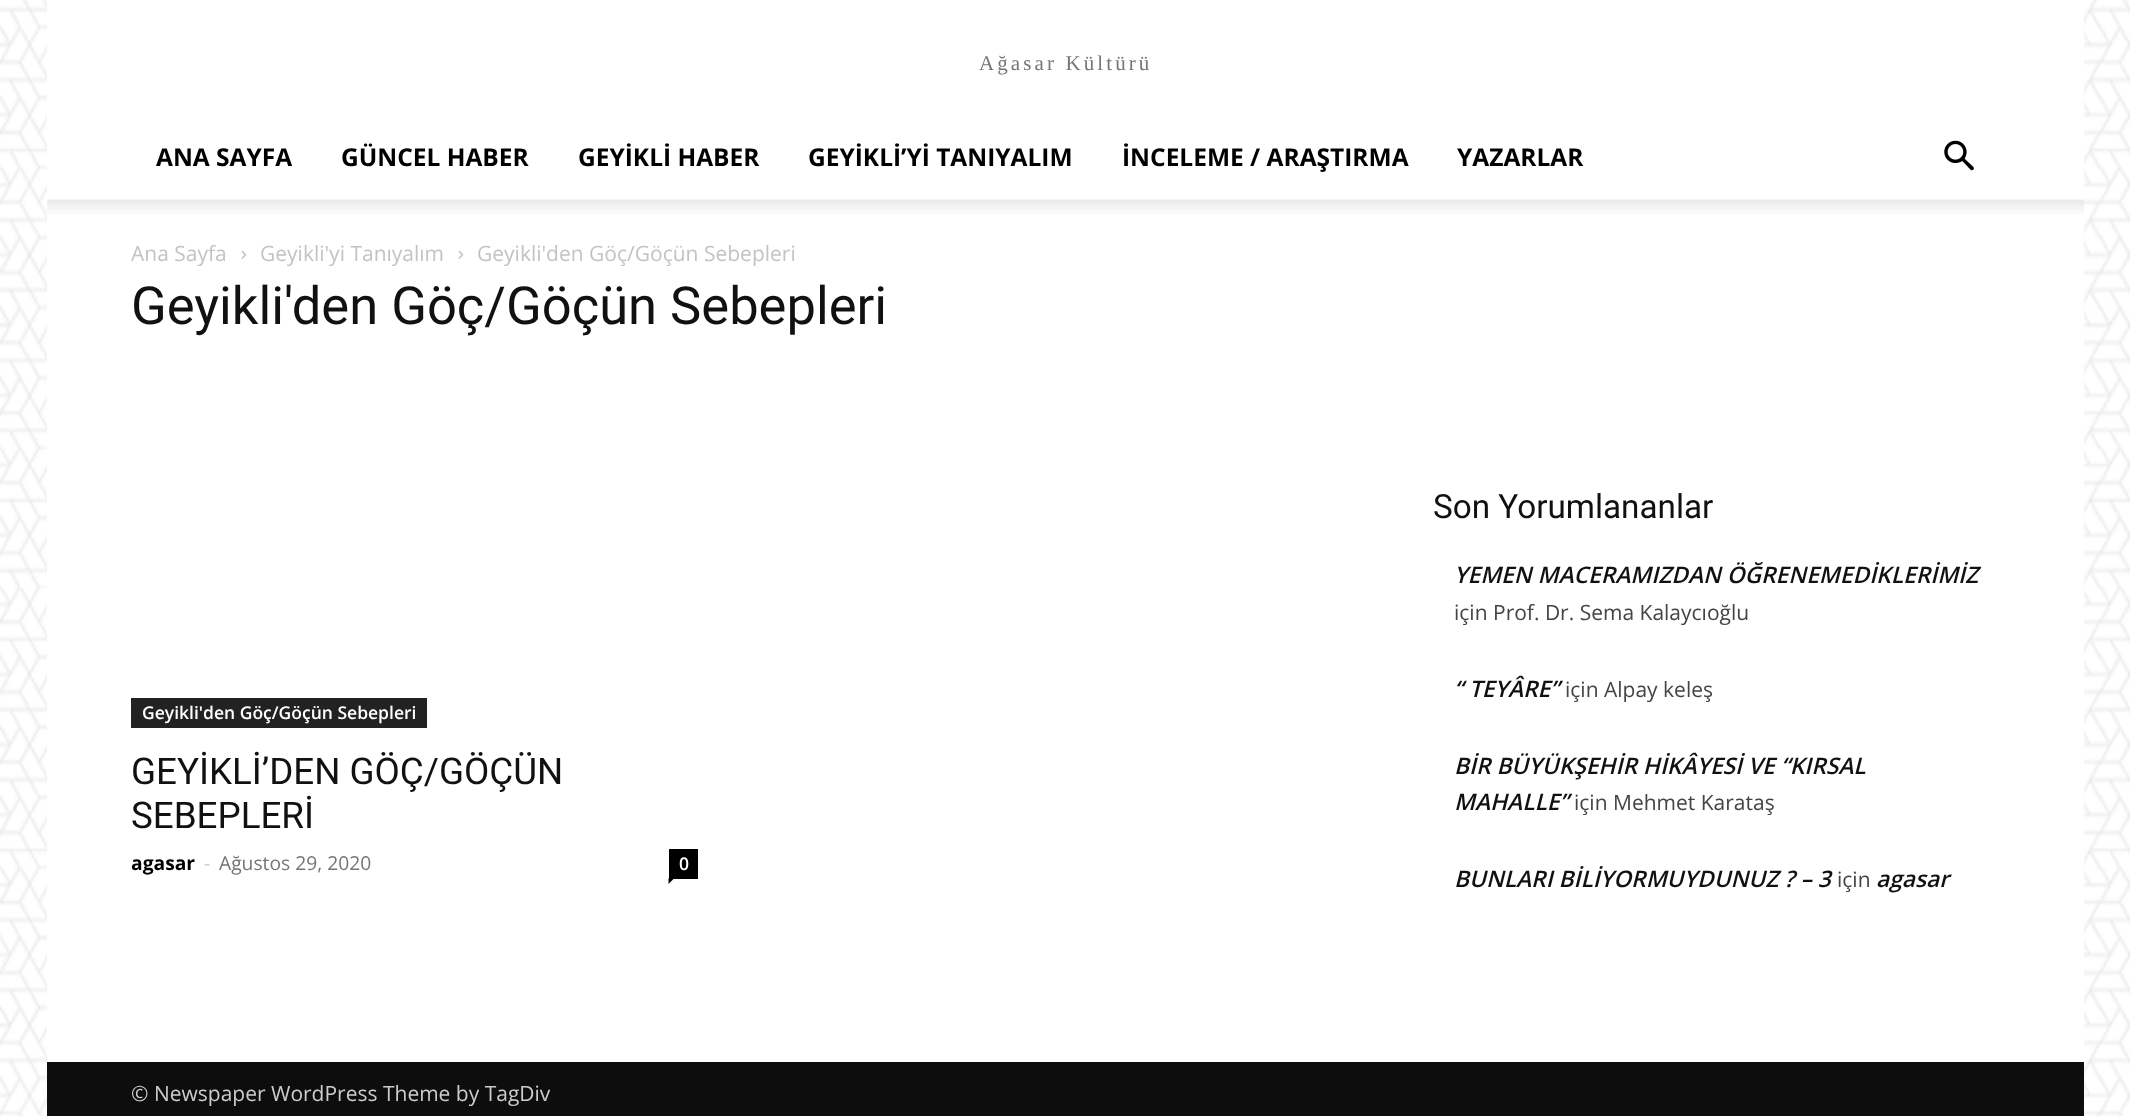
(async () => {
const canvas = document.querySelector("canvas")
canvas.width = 2130
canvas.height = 1116
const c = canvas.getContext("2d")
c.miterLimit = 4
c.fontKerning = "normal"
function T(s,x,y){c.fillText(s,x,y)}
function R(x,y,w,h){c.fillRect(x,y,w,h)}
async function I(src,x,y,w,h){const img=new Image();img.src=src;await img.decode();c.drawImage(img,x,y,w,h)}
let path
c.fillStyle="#fff"
R(0,0,2130,1116)
await I("1.png",0,0,2130,1116)
R(47,0,2037,200)
c.letterSpacing="3.1px"
c.font="21px Liberation Serif"
c.fillStyle="#767676"
T("Ağasar Kültürü",979,70)
c.letterSpacing="0px"
c.font="bold 24.5px Open Sans"
c.fillStyle="#000"
T("ANA SAYFA",156,166)
T("GÜNCEL HABER",341,166)
T("GEYİKLİ HABER",578,166)
T("GEYİKLİ’Yİ TANIYALIM",808,166)
T("İNCELEME / ARAŞTIRMA",1122,166)
T("YAZARLAR",1457,166)
await I("2.png",1944,140,30,31)
c.fillStyle="#fff"
R(47,200,2037,862)
await I("3.png",47,199,2037,15)
c.font="21px Open Sans"
c.fillStyle="#c3c3c3"
T("Ana Sayfa",131,261)
await I("4.png",241,250,6,9)
T("Geyikli'yi Tanıyalım",260,261)
await I("4.png",458,250,6,9)
T("Geyikli'den Göç/Göçün Sebepleri",477,261)
c.font="52.5px Roboto"
c.fillStyle="#111"
T("Geyikli'den Göç/Göçün Sebepleri",131,324)
c.fillStyle="#222"
R(131,698,296,30)
c.font="600 17.5px Open Sans"
c.fillStyle="#fff"
T("Geyikli'den Göç/Göçün Sebepleri",142,719)
c.font="36.75px Roboto"
c.fillStyle="#111"
T("GEYİKLİ’DEN GÖÇ/GÖÇÜN",131,784)
T("SEBEPLERİ",131,828)
c.font="bold 19.25px Open Sans"
c.fillStyle="#000"
T("agasar",131,870)
c.font="19.25px Open Sans"
c.fillStyle="#ccc"
T("-",204,870)
c.fillStyle="#767676"
T("Ağustos 29, 2020",219,870)
c.fillStyle="#000"
R(669,849,29,30)
c.font="600 17.5px Open Sans"
c.fillStyle="#fff"
T("0",679,870)
c.fillStyle="#000"
path = new Path2D("M668.5 878.5h5.5l-5.5 5.5z")
c.fill(path)
c.font="33.25px Roboto"
c.fillStyle="#111"
T("Son Yorumlananlar",1433,518)
c.font="italic 600 22.75px Open Sans"
T("YEMEN MACERAMIZDAN ÖĞRENEMEDİKLERİMİZ",1454,583)
c.font="21px Open Sans"
c.fillStyle="#444"
T("için Prof. Dr. Sema Kalaycıoğlu",1454,620)
c.font="italic 600 22.75px Open Sans"
c.fillStyle="#111"
T("“ TEYÂRE”",1454,697)
c.font="21px Open Sans"
c.fillStyle="#444"
T("için Alpay keleş",1565,697)
c.font="italic 600 22.75px Open Sans"
c.fillStyle="#111"
T("BİR BÜYÜKŞEHİR HİKÂYESİ VE “KIRSAL",1454,774)
T("MAHALLE”",1454,810)
c.font="21px Open Sans"
c.fillStyle="#444"
T("için Mehmet Karataş",1574,810)
c.font="italic 600 22.75px Open Sans"
c.fillStyle="#111"
T("BUNLARI BİLİYORMUYDUNUZ ? – 3",1454,887)
c.font="21px Open Sans"
c.fillStyle="#444"
T("için",1837,887)
c.font="italic 600 22.75px Open Sans"
c.fillStyle="#111"
T("agasar",1876,887)
c.fillStyle="#0d0d0d"
R(47,1062,2037,54)
c.font="21px Open Sans"
c.fillStyle="#ccc"
T("© Newspaper WordPress Theme by TagDiv",131,1101)
})()
